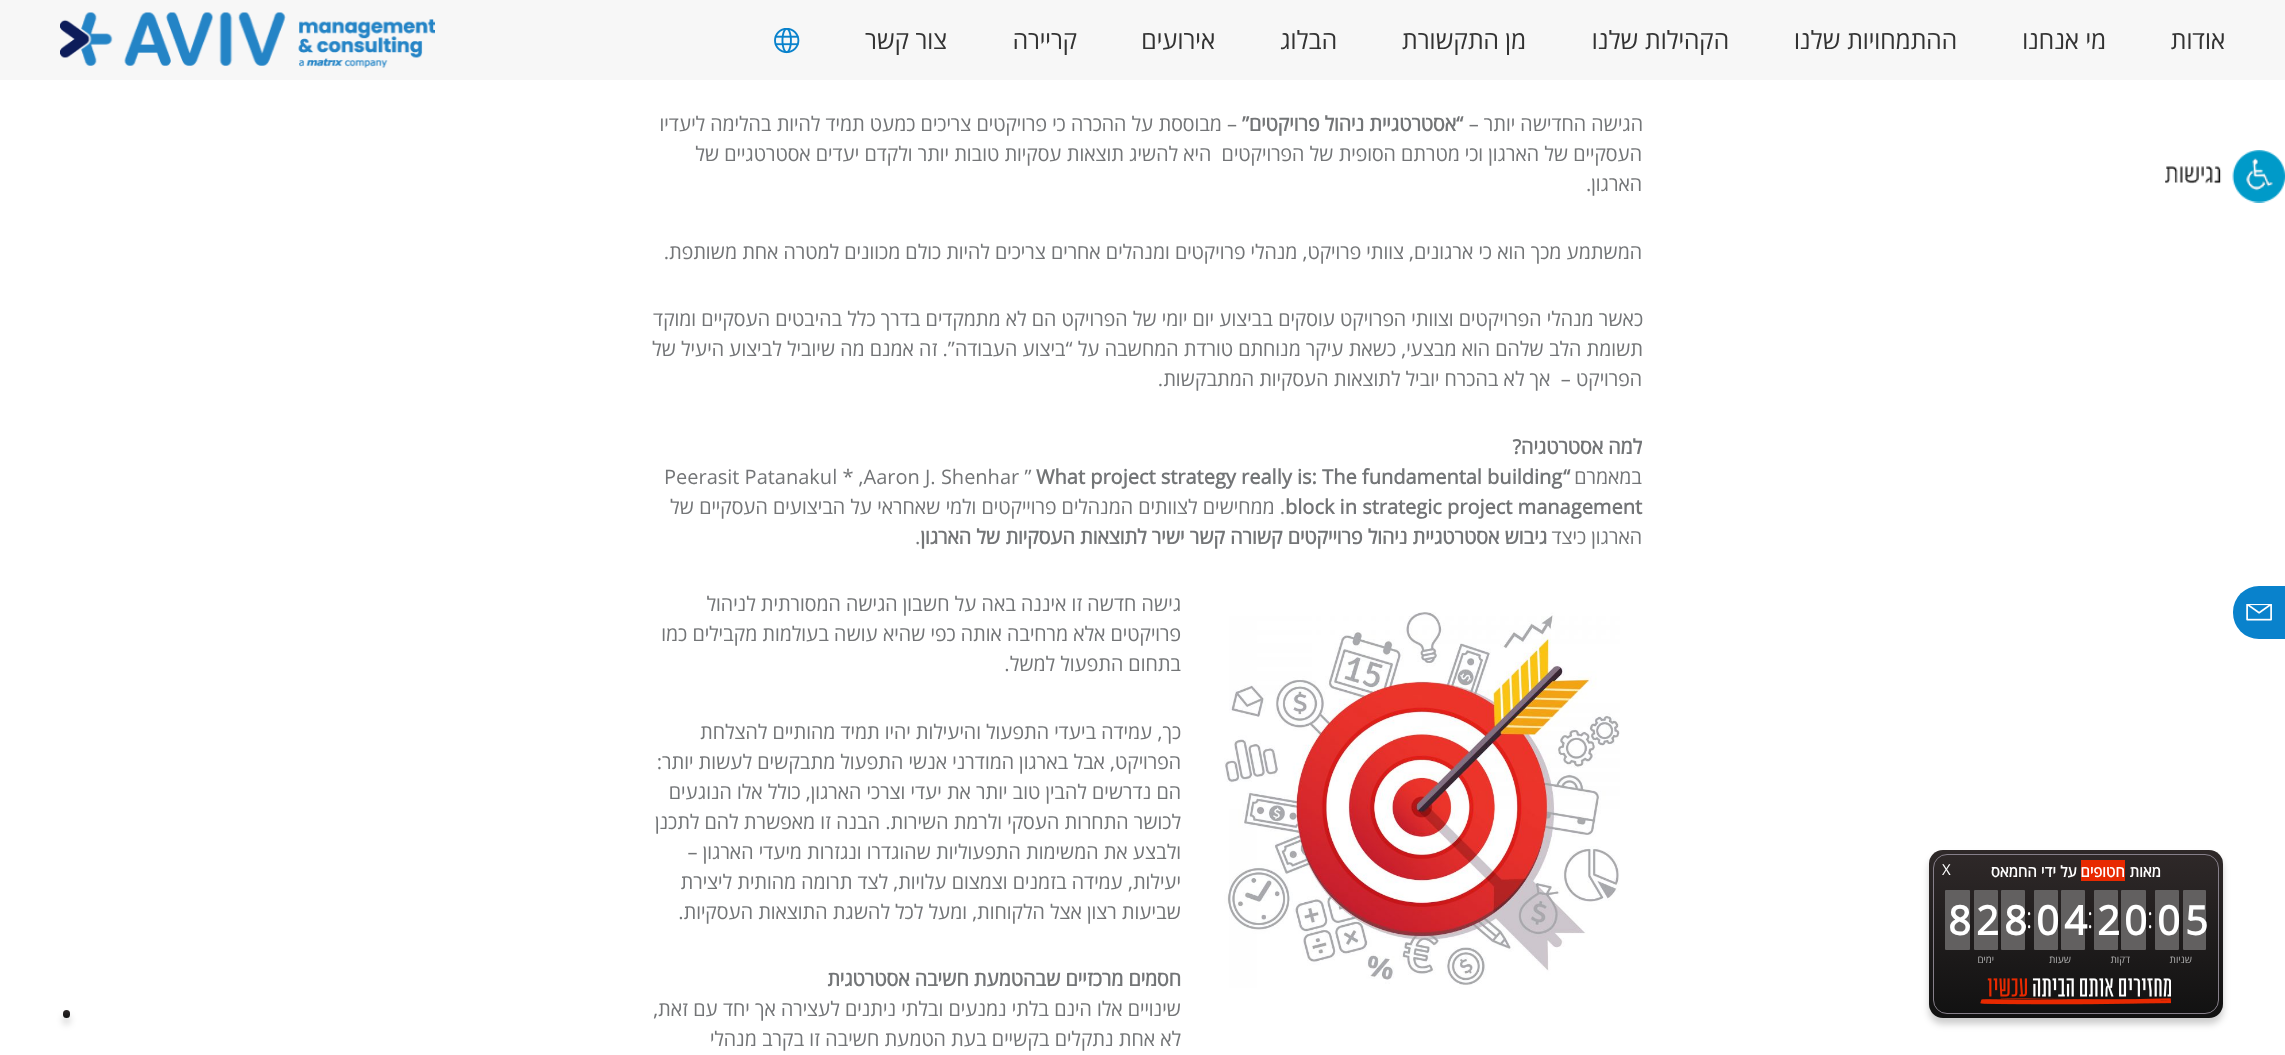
(async () => {
const canvas = document.querySelector("canvas")
canvas.width = 2285
canvas.height = 1055
const c = canvas.getContext("2d")
c.miterLimit = 4
c.fontKerning = "normal"
function T(s,x,y){c.fillText(s,x,y)}
function R(x,y,w,h){c.fillRect(x,y,w,h)}
function Q(x,y,w,h,r){c.beginPath();c.roundRect(x,y,w,h,r);c.fill()}
async function I(src,x,y,w,h){const img=new Image();img.src=src;await img.decode();c.drawImage(img,x,y,w,h)}
let gradient
c.fillStyle="#fff"
R(0,0,2285,1055)
c.fillStyle="#f7f7f7"
R(0,0,2285,80)
c.direction="rtl"
c.font="25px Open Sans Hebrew"
c.fillStyle="#333"
T("אודות",2225,49)
T("מי אנחנו",2106,49)
T("ההתמחויות שלנו",1957,49)
T("הקהילות שלנו",1729,49)
T("מן התקשורת",1526,49)
T("הבלוג",1337,49)
T("אירועים",1215,49)
T("קריירה",1077,49)
T("צור קשר",947,49)
await I("1.png",774,28,26,26)
await I("2.png",60,12,375,56)
await I("3.png",2165,150,120,53)
c.fillStyle="#0982cc"
c.beginPath()
c.roundRect(2233,586,52,53,[26,0,0,26])
c.fill()
await I("4.png",2246,604,26,17)
c.font="20px Open Sans Hebrew"
c.fillStyle="#737577"
T("הגישה החדישה יותר –",1643,131)
c.font="bold 20px Open Sans Hebrew"
T("“אסטרטגיית ניהול פרויקטים”",1463,131)
c.font="20px Open Sans Hebrew"
T("– מבוססת על ההכרה כי פרויקטים צריכים כמעט תמיד להיות בהלימה ליעדיו",1237,131)
T("העסקיים של הארגון וכי מטרתם הסופית של הפרויקטים  היא להשיג תוצאות עסקיות טובות יותר ולקדם יעדים אסטרטגיים של",1642,161)
T("הארגון.",1642,191)
T("המשתמע מכך הוא כי ארגונים, צוותי פרויקט, מנהלי פרויקטים ומנהלים אחרים צריכים להיות כולם מכוונים למטרה אחת משותפת.",1642,259)
T("כאשר מנהלי הפרויקטים וצוותי הפרויקט עוסקים בביצוע יום יומי של הפרויקט הם לא מתמקדים בדרך כלל בהיבטים העסקיים ומוקד",1643,326)
T("תשומת הלב שלהם הוא מבצעי, כשאת עיקר מנוחתם טורדת המחשבה על “ביצוע העבודה”. זה אמנם מה שיוביל לביצוע היעיל של",1643,356)
T("הפרויקט –  אך לא בהכרח יוביל לתוצאות העסקיות המתבקשות.",1642,386)
c.font="bold 20px Open Sans Hebrew"
T("למה אסטרטגיה?",1642,454)
c.font="20px Open Sans Hebrew"
T("במאמרם",1642,484)
c.direction="ltr"
c.font="bold 20px Open Sans Hebrew"
T("“",1563,484)
T("What project strategy really is: The fundamental building",1036,484)
c.font="20px Open Sans Hebrew"
T("Peerasit Patanakul * ,Aaron J. Shenhar ”",664,484)
c.font="bold 20px Open Sans Hebrew"
T("block in strategic project management",1285,514)
c.direction="rtl"
c.font="20px Open Sans Hebrew"
T(". ממחישים לצוותים המנהלים פרוייקטים ולמי שאחראי על הביצועים העסקיים של",1285,514)
T("הארגון כיצד",1642,544)
c.font="bold 20px Open Sans Hebrew"
T("גיבוש אסטרטגיית ניהול פרוייקטים קשורה קשר ישיר לתוצאות העסקיות של הארגון",1547,544)
c.direction="ltr"
c.font="20px Open Sans Hebrew"
T(".",915,544)
await I("5.png",1224,612,396,376)
c.direction="rtl"
T("גישה חדשה זו איננה באה על חשבון הגישה המסורתית לניהול",1181,611)
T("פרויקטים אלא מרחיבה אותה כפי שהיא עושה בעולמות מקבילים כמו",1181,641)
T("בתחום התפעול למשל.",1181,671)
T("כך, עמידה ביעדי התפעול והיעילות יהיו תמיד מהותיים להצלחת",1181,739)
T("הפרויקט, אבל בארגון המודרני אנשי התפעול מתבקשים לעשות יותר:",1181,769)
T("הם נדרשים להבין טוב יותר את יעדי וצרכי הארגון, כולל אלו הנוגעים",1181,799)
T("לכושר התחרות העסקי ולרמת השירות. הבנה זו מאפשרת להם לתכנן",1181,829)
T("ולבצע את המשימות התפעוליות שהוגדרו ונגזרות מיעדי הארגון –",1181,859)
T("יעילות, עמידה בזמנים וצמצום עלויות, לצד תרומה מהותית ליצירת",1181,889)
T("שביעות רצון אצל הלקוחות, ומעל לכל להשגת התוצאות העסקיות.",1181,919)
c.font="bold 20px Open Sans Hebrew"
T("חסמים מרכזיים שבהטמעת חשיבה אסטרטגית",1181,986)
c.font="20px Open Sans Hebrew"
T("שינויים אלו הינם בלתי נמנעים ובלתי ניתנים לעצירה אך יחד עם זאת,",1181,1016)
T("לא אחת נתקלים בקשיים בעת הטמעת חשיבה זו בקרב מנהלי",1181,1046)
c.fillStyle="#00000033"
c.filter="blur(3.5px)"
c.beginPath()
c.roundRect(1929,856,294,168,14)
c.fill()
c.filter="none"
gradient = c.createLinearGradient(2076,850,2076,1018)
gradient.addColorStop(0,"#2f2929")
gradient.addColorStop(1,"#111")
c.fillStyle = gradient
Q(1929,850,294,168,14)
c.beginPath()
c.roundRect(1933.5,854.5,285,159,13.5)
c.strokeStyle="#867f8a"
c.stroke()
c.letterSpacing="0.25px"
c.font="bold 15px Open Sans Hebrew"
c.fillStyle="#fff"
T("מאות",2161,877)
c.fillStyle="#e82900"
R(2081,860,44,21)
c.fillStyle="#fff"
T("חטופים",2125,877)
T("על ידי החמאס",2077,877)
c.letterSpacing="0px"
c.direction="ltr"
c.font="15px Open Sans Hebrew"
T("X",1942,875)
c.fillStyle="#626060"
Q(2183,890,23,60,1)
c.font="bold 40px Open Sans Hebrew"
c.fillStyle="#fff"
T("5",2185,935)
c.fillStyle="#626060"
Q(2155,890,24,60,1)
c.fillStyle="#fff"
T("0",2157,935)
c.direction="rtl"
c.font="10px Open Sans Hebrew"
c.fillStyle="#afafaf"
T("שניות",2192,963)
c.direction="ltr"
c.font="300 30px Open Sans Condensed"
c.fillStyle="#fff"
T(":",2147,928)
c.fillStyle="#626060"
Q(2121,890,25,60,1)
c.font="bold 40px Open Sans Hebrew"
c.fillStyle="#fff"
T("0",2124,935)
c.fillStyle="#626060"
Q(2094,890,24,60,1)
c.fillStyle="#fff"
T("2",2097,935)
c.direction="rtl"
c.font="10px Open Sans Hebrew"
c.fillStyle="#afafaf"
T("דקות",2130,963)
c.direction="ltr"
c.font="300 30px Open Sans Condensed"
c.fillStyle="#fff"
T(":",2087,928)
c.fillStyle="#626060"
Q(2061,890,24,60,1)
c.font="bold 40px Open Sans Hebrew"
c.fillStyle="#fff"
T("4",2064,935)
c.fillStyle="#626060"
Q(2034,890,24,60,1)
c.fillStyle="#fff"
T("0",2036,935)
c.direction="rtl"
c.font="10px Open Sans Hebrew"
c.fillStyle="#afafaf"
T("שעות",2071,963)
c.direction="ltr"
c.font="300 30px Open Sans Condensed"
c.fillStyle="#fff"
T(":",2026,928)
c.fillStyle="#626060"
Q(2001,890,24,60,1)
c.font="bold 40px Open Sans Hebrew"
c.fillStyle="#fff"
T("8",2004,935)
c.fillStyle="#626060"
Q(1974,890,24,60,1)
c.fillStyle="#fff"
T("2",1976,935)
c.fillStyle="#626060"
Q(1945,890,25,60,1)
c.fillStyle="#fff"
T("8",1948,935)
c.direction="rtl"
c.font="10px Open Sans Hebrew"
c.fillStyle="#afafaf"
T("ימים",1994,963)
await I("6.png",1980,978,191,27)
c.fillStyle="#00000033"
c.filter="blur(3.5px)"
c.beginPath()
c.roundRect(63,1016,7,8,3.5)
c.fill()
c.filter="none"
gradient = c.createLinearGradient(66,1010,66,1018)
gradient.addColorStop(0,"#2f2929")
gradient.addColorStop(1,"#111")
c.fillStyle = gradient
Q(63,1010,7,8,3.5)
})()
